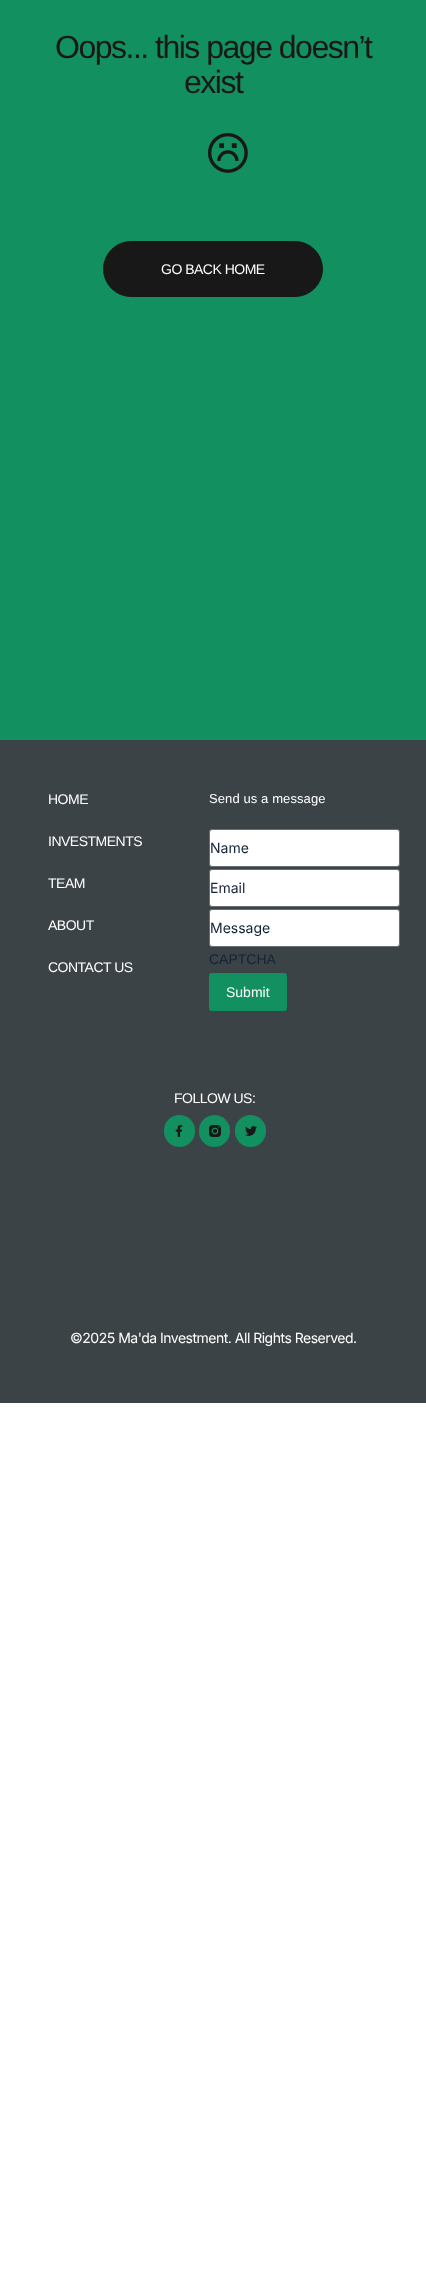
(async () => {
const canvas = document.querySelector("canvas")
canvas.width = 426
canvas.height = 2283
const c = canvas.getContext("2d")
c.miterLimit = 4
c.fontKerning = "normal"
function T(s,x,y){c.fillText(s,x,y)}
function R(x,y,w,h){c.fillRect(x,y,w,h)}
function Q(x,y,w,h,r){c.beginPath();c.roundRect(x,y,w,h,r);c.fill()}
async function I(src,x,y,w,h){const img=new Image();img.src=src;await img.decode();c.drawImage(img,x,y,w,h)}
c.fillStyle="#fff"
R(0,0,426,2283)
c.fillStyle="#129060"
R(0,0,426,740)
c.letterSpacing="-1.5px"
c.font="32px Liberation Sans"
c.fillStyle="#181818"
T("Oops... this page doesn’t",55,58)
T("exist",184,93)
await I("1.png",208,133,40,40)
c.beginPath()
c.roundRect(103.5,241.5,219,55,27.5)
c.fill()
c.strokeStyle="#181818"
c.stroke()
c.letterSpacing="-0.5px"
c.font="14px Liberation Sans"
c.fillStyle="#fff"
T("GO BACK HOME",161,274)
c.fillStyle="#3c4346"
R(0,740,426,663)
c.fillStyle="#fff"
T("HOME",48,804)
T("INVESTMENTS",48,846)
T("TEAM",48,888)
T("ABOUT",48,930)
T("CONTACT US",48,972)
c.letterSpacing="0.1px"
c.font="13px Liberation Sans"
T("Send us a message",209,803)
c.beginPath()
c.roundRect(209.5,829.5,190,37,2.5)
c.fill()
c.strokeStyle="#686e77"
c.stroke()
c.letterSpacing="0px"
c.font="14px Inter"
c.fillStyle="#112337"
T("Name",210,853)
c.fillStyle="#fff"
c.beginPath()
c.roundRect(209.5,869.5,190,37,2.5)
c.fill()
c.stroke()
c.fillStyle="#112337"
T("Email",210,893)
c.fillStyle="#fff"
c.beginPath()
c.roundRect(209.5,909.5,190,37,2.5)
c.fill()
c.stroke()
c.fillStyle="#112337"
T("Message",210,933)
c.font="14px Liberation Sans"
T("CAPTCHA",209,964)
c.fillStyle="#129060"
Q(209,973,78,38,3)
c.fillStyle="#fff"
T("Submit",226,997)
c.letterSpacing="-0.5px"
T("FOLLOW US:",174,1103)
c.fillStyle="#129060"
Q(164,1115,31,32,15.5)
await I("2.png",175,1125,8,12)
Q(199,1115,31,32,15.5)
await I("3.png",209,1125,12,12)
Q(235,1115,31,32,15.5)
await I("4.png",245,1126,12,10)
c.font="14px Inter"
c.fillStyle="#fff"
T("©2025 Ma'da Investment. All Rights Reserved.",70,1343)
})()
